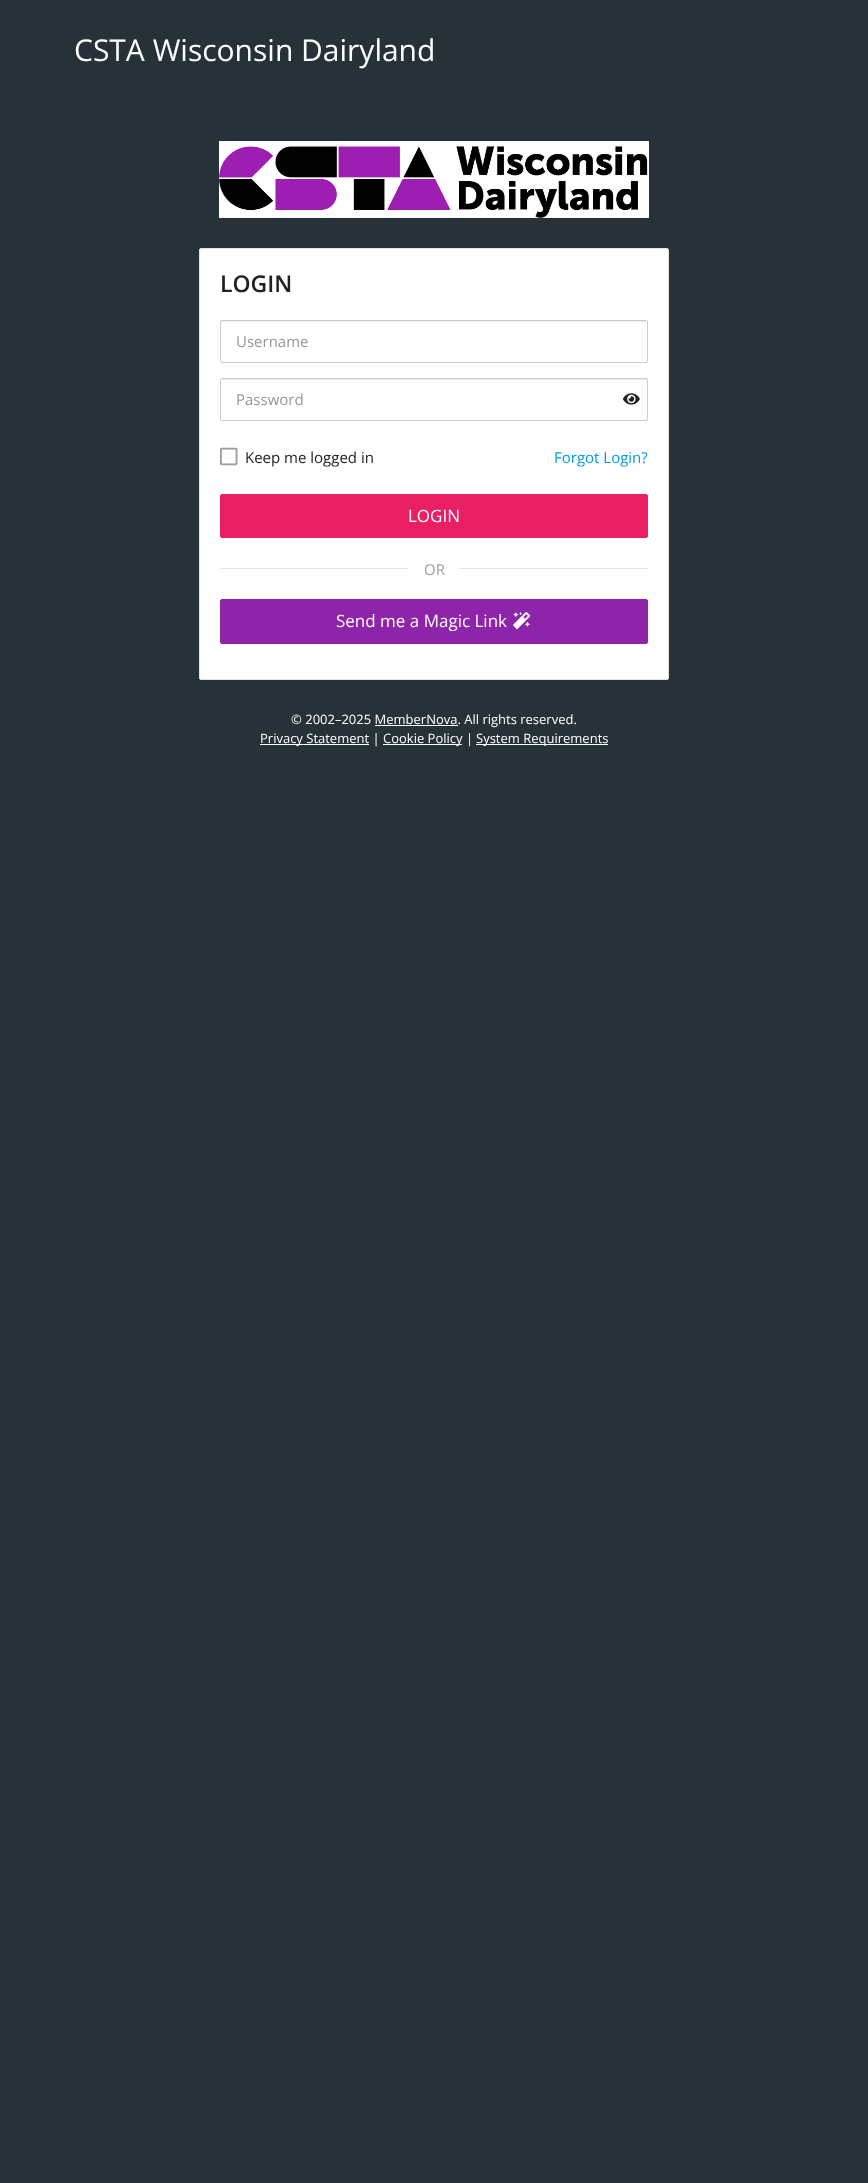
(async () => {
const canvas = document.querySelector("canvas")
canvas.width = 868
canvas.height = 2183
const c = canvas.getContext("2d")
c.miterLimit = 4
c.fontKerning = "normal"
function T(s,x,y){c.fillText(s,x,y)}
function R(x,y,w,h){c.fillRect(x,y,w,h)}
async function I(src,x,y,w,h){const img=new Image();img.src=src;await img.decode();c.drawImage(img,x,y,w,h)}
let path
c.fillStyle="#263238"
R(0,0,868,2183)
c.font="30px Open Sans"
c.fillStyle="#fff"
T("CSTA Wisconsin Dairyland",74,61)
await I("1.png",219,141,430,77)
c.beginPath()
c.roundRect(199.5,248.5,469,431,1.5)
c.fill()
c.strokeStyle="#e5e5e5"
c.stroke()
c.font="600 23px Open Sans"
c.fillStyle="#212121"
T("LOGIN",220,292)
c.fillStyle="#ececec"
path = new Path2D("M222 322h424h1v1c0-1 0-2-1-2h-424l-1 1v1c0-1 0-1 1-1z")
c.fill(path)
c.beginPath()
c.roundRect(220.5,320.5,427,42,1.5)
c.strokeStyle="#ccc"
c.stroke()
c.font="15px Open Sans"
c.fillStyle="#969696"
T("Username",236,347)
c.fillStyle="#ececec"
path = new Path2D("M222 380h424h1v1c0-1 0-2-1-2h-424l-1 1v1c0-1 0-1 1-1z")
c.fill(path)
c.beginPath()
c.roundRect(220.5,378.5,427,42,1.5)
c.stroke()
c.fillStyle="#969696"
T("Password",236,405)
await I("2.png",623,393,17,12)
await I("3.png",220,447,18,19)
c.fillStyle="#212121"
T("Keep me logged in",245,463)
c.fillStyle="#039be5"
T("Forgot Login?",554,463)
c.fillStyle="#e91e63"
c.beginPath()
c.roundRect(220.5,494.5,427,43,1.5)
c.fill()
c.strokeStyle="#e91e63"
c.stroke()
c.font="17px Open Sans"
c.fillStyle="#fff"
T("LOGIN",408,522)
c.fillStyle="#e5e5e5"
R(220,568,428,1)
c.fillStyle="#fff"
R(409,568,50,1)
c.font="15px Open Sans"
c.fillStyle="#9e9e9e"
T("OR",424,575)
c.fillStyle="#8e24aa"
c.beginPath()
c.roundRect(220.5,599.5,427,44,1.5)
c.fill()
c.strokeStyle="#8e24aa"
c.stroke()
c.font="17px Open Sans"
c.fillStyle="#fff"
T("Send me a Magic Link",336,627)
await I("4.png",513,612,18,17)
c.font="13px Open Sans"
T("© 2002–2025 MemberNova. All rights reserved.",291,724)
R(375,725,83,1)
R(260,744,109,1)
T("Privacy Statement |",260,743)
R(383,744,79,1)
T("Cookie Policy |",383,743)
R(476,744,132,1)
T("System Requirements",476,743)
})()
